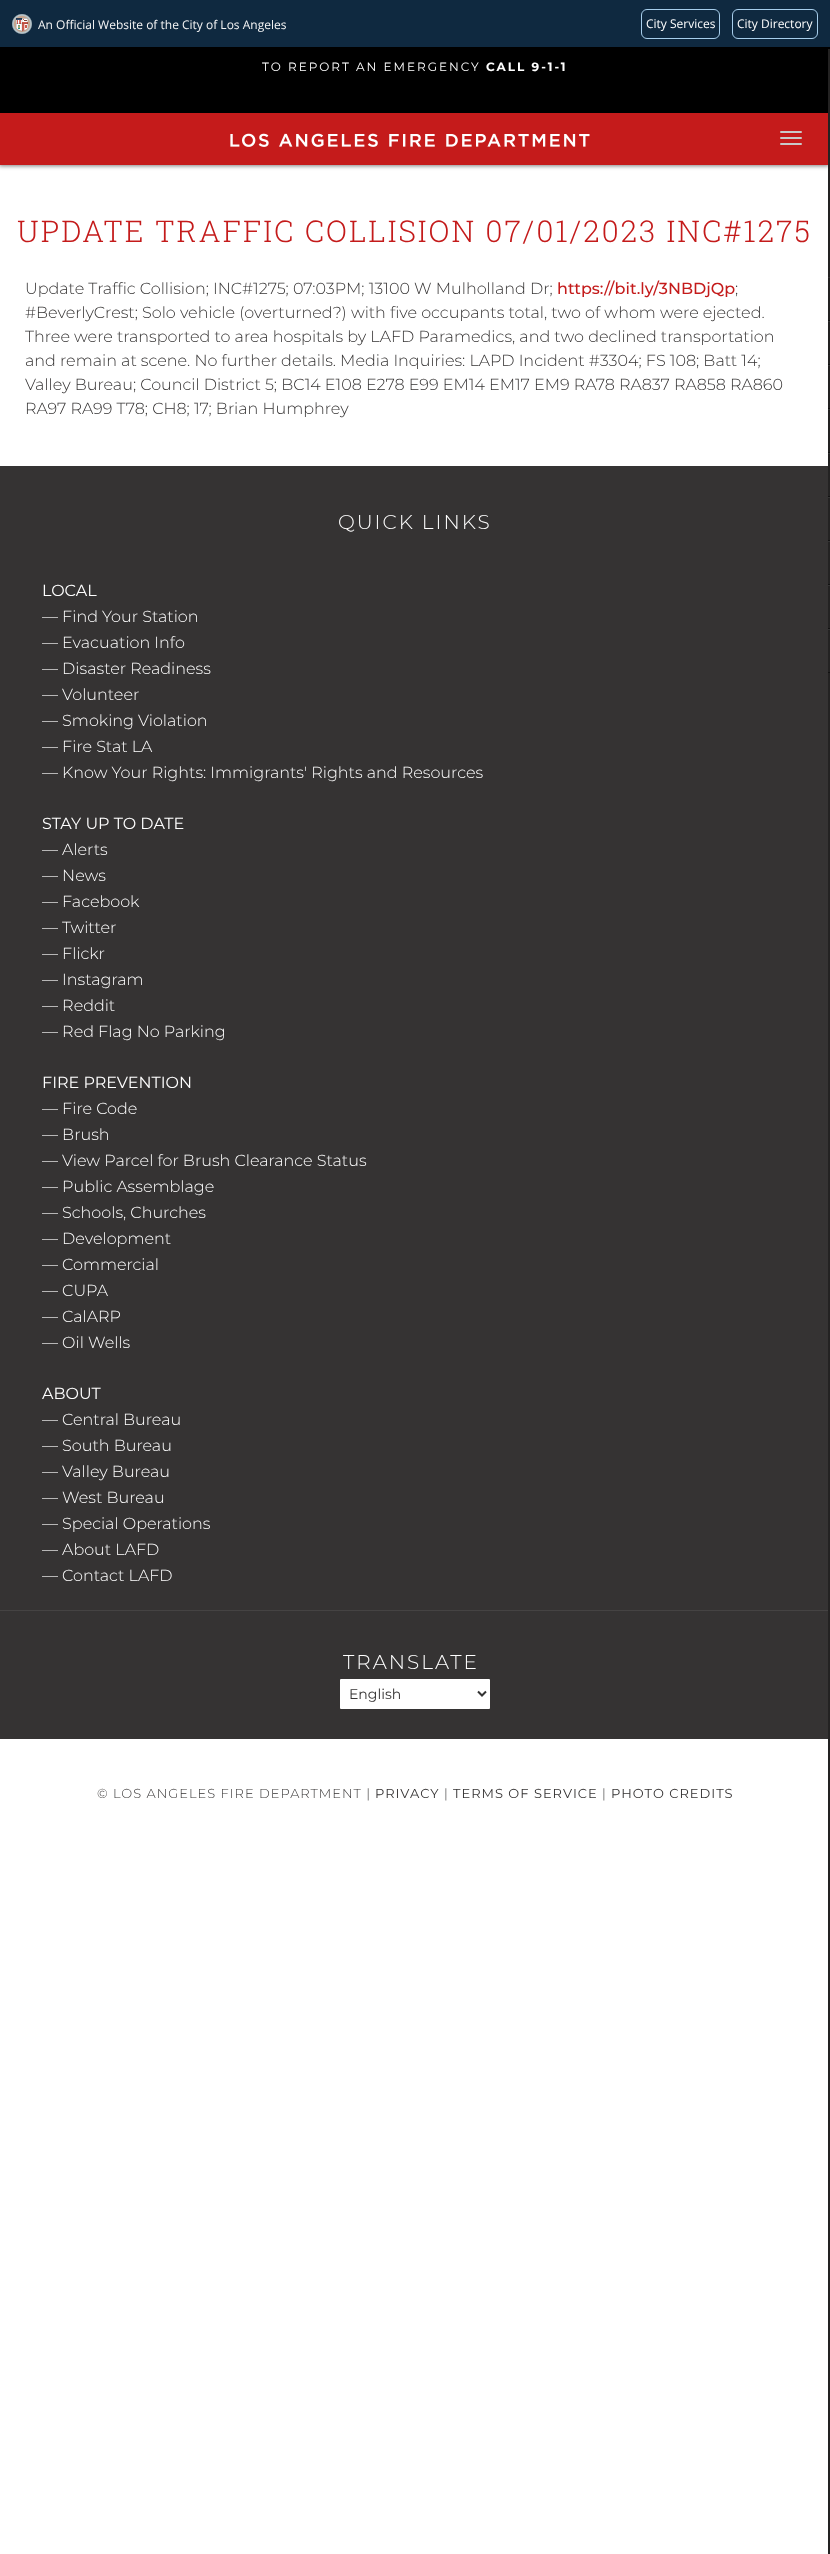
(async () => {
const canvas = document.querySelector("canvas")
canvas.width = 830
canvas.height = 2554
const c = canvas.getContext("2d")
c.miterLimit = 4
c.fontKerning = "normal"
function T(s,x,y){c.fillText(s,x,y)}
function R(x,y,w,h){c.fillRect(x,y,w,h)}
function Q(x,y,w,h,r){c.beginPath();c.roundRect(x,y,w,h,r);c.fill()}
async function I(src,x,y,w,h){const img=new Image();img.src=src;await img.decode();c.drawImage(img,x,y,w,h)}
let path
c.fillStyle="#fff"
R(0,0,830,2554)
c.fillStyle="#0f2940"
R(0,0,830,47)
await I("1.png",12,14,20,20)
c.font="12px Open Sans"
c.fillStyle="#f5f5f5"
T("An Official Website of the City of Los Angeles",38,29)
c.beginPath()
c.roundRect(641.5,9.5,78,29,5.5)
c.strokeStyle="#a7ceec"
c.stroke()
c.fillStyle="#fff"
T("City Services",646,28)
c.beginPath()
c.roundRect(732.5,9.5,85,29,5.5)
c.stroke()
T("City Directory",737,28)
c.fillStyle="#000"
R(0,47,830,66)
c.fillStyle="#00000080"
c.filter="blur(2px)"
c.beginPath()
c.rect(-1,114,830,52)
c.fill()
c.filter="none"
c.fillStyle="#c51b1b"
R(0,113,828,52)
await I("2.png",230,133,360,14)
c.fillStyle="#c9c9c9"
Q(780,131,22,2,1)
Q(780,137,22,2,1)
Q(780,143,22,2,1)
c.fillStyle="#353333"
R(0,466,828,1273)
c.fillStyle="#454343"
R(0,1610,830,1)
c.fillStyle="#232222"
R(828,49,2,2505)
c.fillStyle="#333"
R(828,277,2,1)
c.fillStyle="#111"
R(828,320,2,1)
c.fillStyle="#333"
R(828,321,2,1)
c.fillStyle="#111"
R(828,364,2,1)
c.fillStyle="#333"
R(828,365,2,1)
c.fillStyle="#111"
R(828,408,2,1)
c.fillStyle="#333"
R(828,409,2,1)
c.fillStyle="#111"
R(828,452,2,1)
c.fillStyle="#333"
R(828,453,2,1)
c.fillStyle="#111"
R(828,496,2,1)
c.fillStyle="#333"
R(828,497,2,1)
c.fillStyle="#111"
R(828,540,2,1)
c.fillStyle="#333"
R(828,541,2,1)
c.fillStyle="#111"
R(828,584,2,1)
c.fillStyle="#333"
R(828,585,2,1)
c.fillStyle="#111"
R(828,628,2,1)
c.fillStyle="#333"
R(828,629,2,1)
c.fillStyle="#111"
R(828,672,2,1)
c.letterSpacing="2px"
c.font="12px Montserrat"
c.fillStyle="#fff"
T("TO REPORT AN EMERGENCY",262,71)
c.font="bold 12px Montserrat"
T("CALL 9-1-1",486,71)
c.font="300 30px Roboto Slab"
c.fillStyle="#c41b1b"
T("UPDATE TRAFFIC COLLISION 07/01/2023 INC#1275",17,242)
c.letterSpacing="0px"
c.font="300 16px Montserrat"
c.fillStyle="#353333"
T("Update Traffic Collision; INC#1275; 07:03PM; 13100 W Mulholland Dr;",25,294)
c.font="500 16px Montserrat"
c.fillStyle="#c41b1b"
T("https://bit.ly/3NBDjQp",557,294)
c.font="300 16px Montserrat"
c.fillStyle="#353333"
T(";",735,294)
T("#BeverlyCrest; Solo vehicle (overturned?) with five occupants total, two of whom were ejected.",25,318)
T("Three were transported to area hospitals by LAFD Paramedics, and two declined transportation",25,342)
T("and remain at scene. No further details. Media Inquiries: LAPD Incident #3304; FS 108; Batt 14;",25,366)
T("Valley Bureau; Council District 5; BC14 E108 E278 E99 EM14 EM17 EM9 RA78 RA837 RA858 RA860",25,390)
T("RA97 RA99 T78; CH8; 17; Brian Humphrey",25,414)
c.letterSpacing="2px"
c.font="300 20px Montserrat"
c.fillStyle="#fff"
T("QUICK LINKS",338,529)
c.letterSpacing="0px"
c.font="16px Montserrat"
T("LOCAL",42,596)
c.font="300 16px Montserrat"
T("— Find Your Station",42,622)
T("— Evacuation Info",42,648)
T("— Disaster Readiness",42,674)
T("— Volunteer",42,700)
T("— Smoking Violation",42,726)
T("— Fire Stat LA",42,752)
T("— Know Your Rights: Immigrants' Rights and Resources",42,778)
c.font="16px Montserrat"
T("STAY UP TO DATE",42,829)
c.font="300 16px Montserrat"
T("— Alerts",42,855)
T("— News",42,881)
T("— Facebook",42,907)
T("— Twitter",42,933)
T("— Flickr",42,959)
T("— Instagram",42,985)
T("— Reddit",42,1011)
T("— Red Flag No Parking",42,1037)
c.font="16px Montserrat"
T("FIRE PREVENTION",42,1088)
c.font="300 16px Montserrat"
T("— Fire Code",42,1114)
T("— Brush",42,1140)
T("— View Parcel for Brush Clearance Status",42,1166)
T("— Public Assemblage",42,1192)
T("— Schools, Churches",42,1218)
T("— Development",42,1244)
T("— Commercial",42,1270)
T("— CUPA",42,1296)
T("— CalARP",42,1322)
T("— Oil Wells",42,1348)
c.font="16px Montserrat"
T("ABOUT",42,1399)
c.font="300 16px Montserrat"
T("— Central Bureau",42,1425)
T("— South Bureau",42,1451)
T("— Valley Bureau",42,1477)
T("— West Bureau",42,1503)
T("— Special Operations",42,1529)
T("— About LAFD",42,1555)
T("— Contact LAFD",42,1581)
c.letterSpacing="2px"
c.font="300 20px Montserrat"
T("TRANSLATE",343,1669)
Q(340,1679,150,30,1)
path = new Path2D("M478 1691.5l4 4l4-4")
c.strokeStyle="#333"
c.lineWidth=2
c.stroke(path)
c.letterSpacing="0px"
c.font="14px Montserrat"
c.fillStyle="#353333"
T("English",349,1699)
c.letterSpacing="1px"
c.font="300 13px Montserrat"
T("© LOS ANGELES FIRE DEPARTMENT |",97,1798)
c.font="13px Montserrat"
T("PRIVACY",375,1798)
c.font="300 13px Montserrat"
T("|",444,1798)
c.font="13px Montserrat"
T("TERMS OF SERVICE",453,1798)
c.font="300 13px Montserrat"
T("|",602,1798)
c.font="13px Montserrat"
T("PHOTO CREDITS",611,1798)
})()
